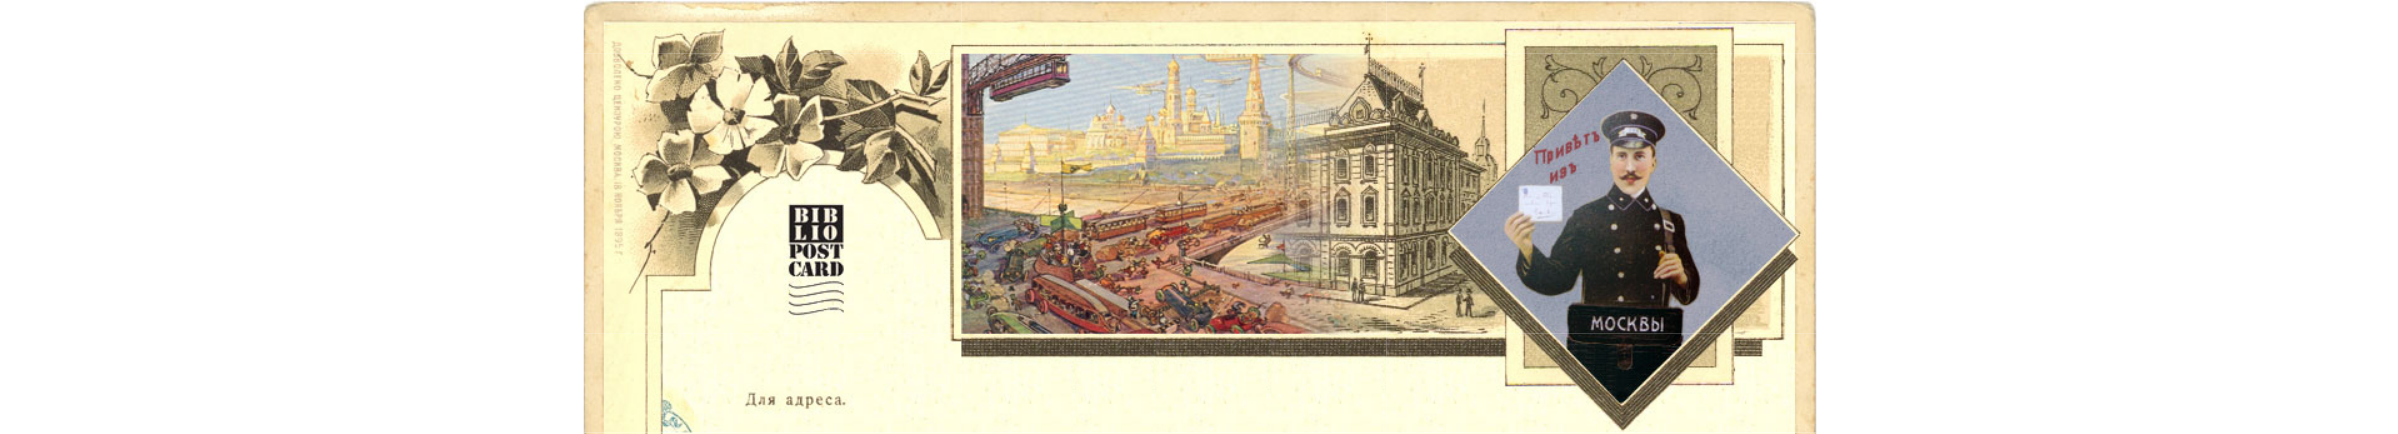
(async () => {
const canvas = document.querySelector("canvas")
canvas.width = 2398
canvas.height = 434
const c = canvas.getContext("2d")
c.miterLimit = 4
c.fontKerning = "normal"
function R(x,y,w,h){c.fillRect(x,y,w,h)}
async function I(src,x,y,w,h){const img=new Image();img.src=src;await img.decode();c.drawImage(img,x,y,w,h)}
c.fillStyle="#fff"
R(0,0,2398,434)
await I("1.png",583,0,379,54)
await I("2.png",961,0,426,54)
await I("3.png",1386,0,431,54)
await I("8.png",961,333,426,100)
await I("4.png",583,53,379,281)
await I("5.png",961,53,426,281)
await I("6.png",1386,53,431,281)
await I("10.png",583,432,80,2)
await I("7.png",583,333,379,100)
await I("11.png",1795,432,22,2)
await I("9.png",1386,333,431,100)
c.fillStyle="#ffffe1"
R(663,433,1132,1)
})()
